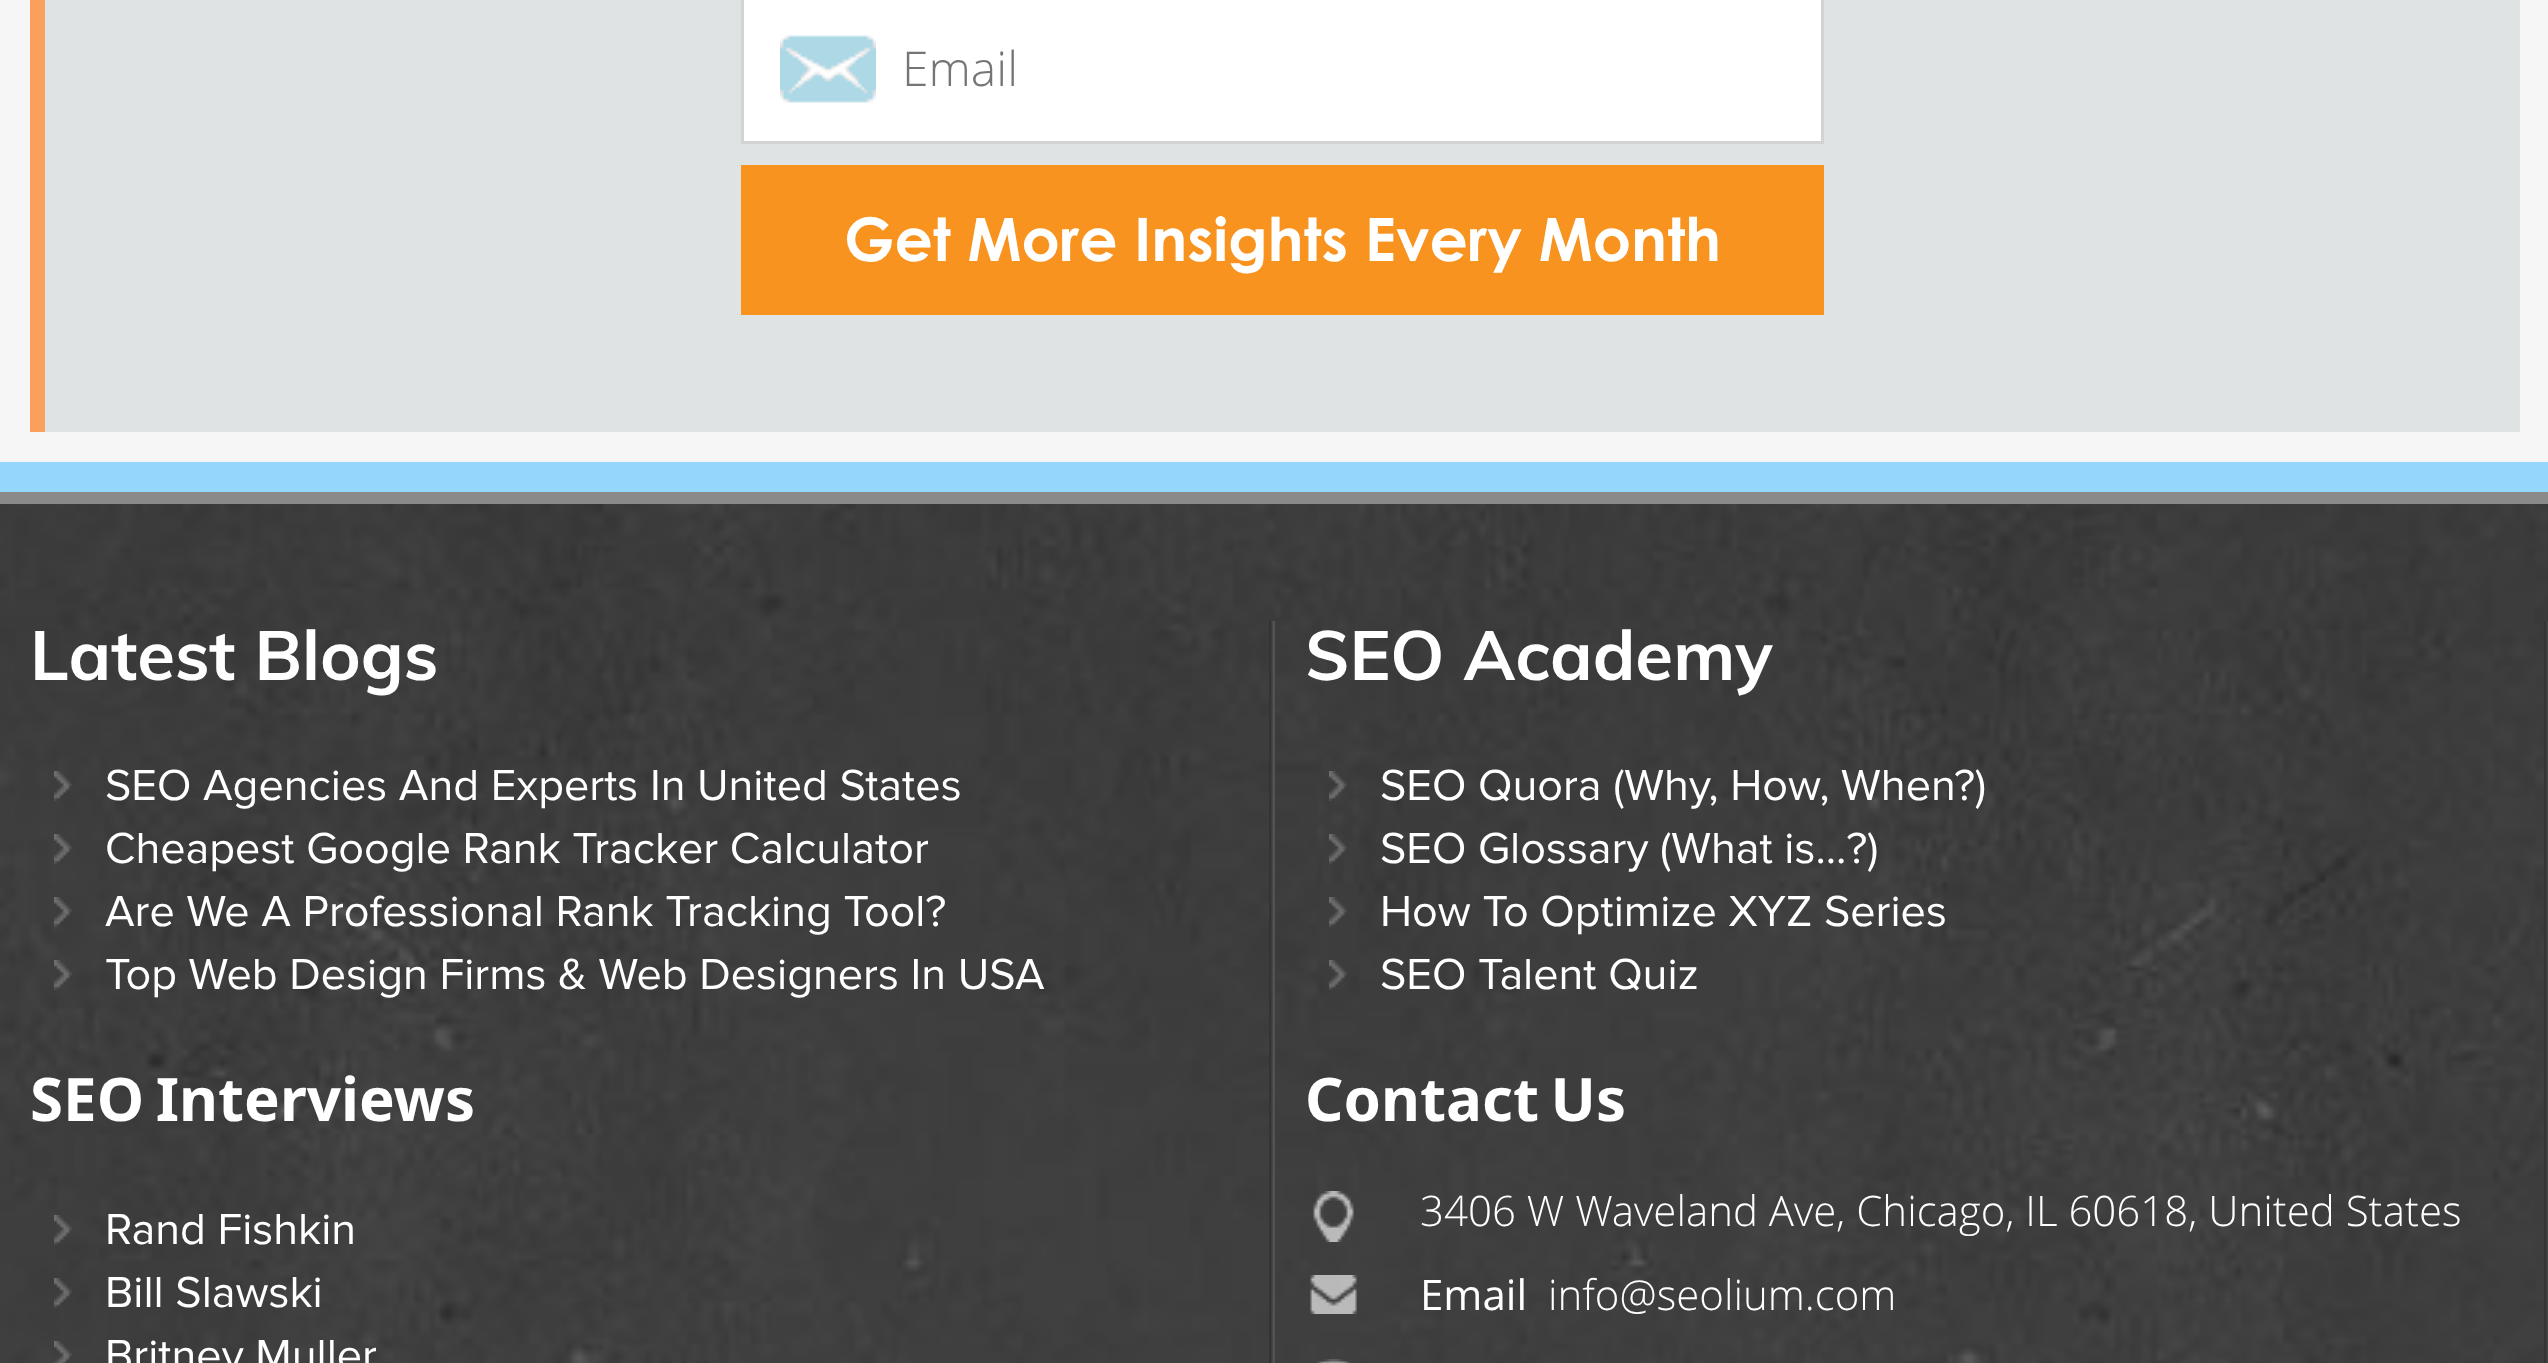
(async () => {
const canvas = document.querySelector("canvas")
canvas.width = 2548
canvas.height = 1363
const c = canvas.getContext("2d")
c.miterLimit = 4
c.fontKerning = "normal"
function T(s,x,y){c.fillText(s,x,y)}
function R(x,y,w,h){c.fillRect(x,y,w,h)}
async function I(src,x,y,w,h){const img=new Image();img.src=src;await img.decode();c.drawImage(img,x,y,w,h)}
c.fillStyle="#95d7fc"
R(0,0,2548,1363)
c.fillStyle="#f6f6f6"
R(0,0,2548,462)
c.fillStyle="#dfe3e4"
R(45,0,2475,432)
c.fillStyle="#fb9f5d"
R(30,0,15,432)
c.fillStyle="#fff"
R(744,0,1077,141)
await I("1.png",780,35,96,68)
c.strokeStyle="#d3d3d3"
c.lineWidth=3
c.strokeRect(742.5,-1.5,1080,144)
c.font="300 48px Open Sans"
c.fillStyle="#757575"
T("Email",902,86)
c.fillStyle="#f7931e"
R(741,165,1083,150)
c.font="bold 60px Century Gothic"
c.fillStyle="#fff"
T("Get More Insights Every Month",844,261)
await I("2.png",0,504,2548,859)
c.fillStyle="#8a8a8a"
R(0,492,2548,12)
await I("3.png",1269,621,6,447)
c.font="bold 69px Muli"
c.fillStyle="#fff"
T("Latest Blogs",30,680)
await I("4.png",54,771,18,30)
c.font="45px Proxima Nova"
T("SEO Agencies And Experts In United States",105,800)
await I("5.png",54,834,18,30)
T("Cheapest Google Rank Tracker Calculator",105,863)
await I("6.png",54,897,18,30)
T("Are We A Professional Rank Tracking Tool?",105,926)
await I("7.png",54,960,18,30)
T("Top Web Design Firms & Web Designers In USA",105,989)
await I("8.png",2544,621,4,447)
c.font="bold 69px Muli"
T("SEO Academy",1305,680)
await I("9.png",1329,771,18,30)
c.font="45px Proxima Nova"
T("SEO Quora (Why, How, When?)",1380,800)
await I("10.png",1329,834,18,30)
T("SEO Glossary (What is...?)",1380,863)
await I("11.png",1329,897,18,30)
T("How To Optimize XYZ Series",1380,926)
await I("12.png",1329,960,18,30)
T("SEO Talent Quiz",1380,989)
await I("13.png",1269,1068,6,295)
c.wordSpacing="-4px"
c.font="bold 60px Noto Sans"
T("SEO Interviews",30,1121)
await I("14.png",54,1215,18,30)
c.wordSpacing="0px"
c.font="45px Proxima Nova"
T("Rand Fishkin",105,1244)
await I("15.png",54,1278,18,30)
T("Bill Slawski",105,1307)
await I("16.png",54,1341,18,22)
T("Britney Muller",105,1370)
await I("17.png",2544,1068,4,295)
c.wordSpacing="-4px"
c.font="bold 60px Noto Sans"
T("Contact Us",1305,1121)
await I("18.png",1313,1191,41,51)
c.wordSpacing="0px"
c.font="300 42px Open Sans"
T("3406 W Waveland Ave, Chicago, IL 60618, United States",1420,1226)
await I("19.png",1310,1275,47,39)
c.font="42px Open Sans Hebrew"
T("Email",1420,1310)
c.font="300 42px Open Sans"
T("info@seolium.com",1548,1310)
await I("20.png",1316,1359,35,4)
})()
